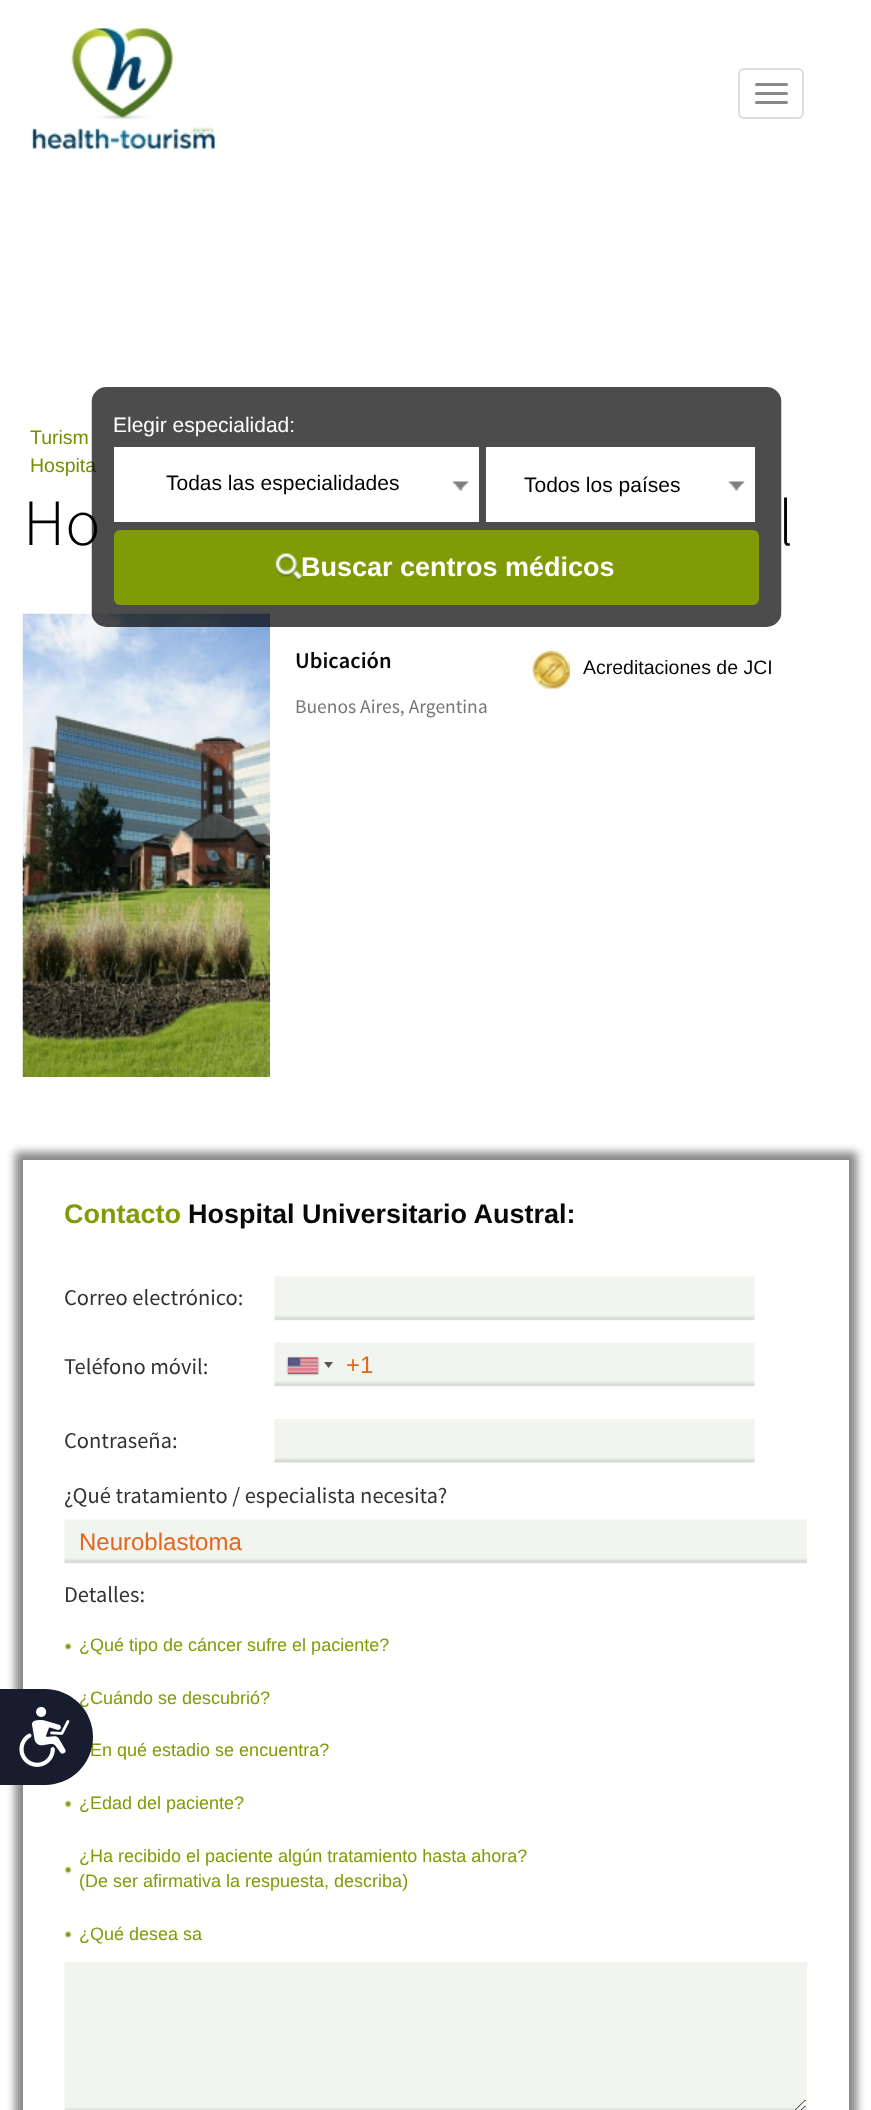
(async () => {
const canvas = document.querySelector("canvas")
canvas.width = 871
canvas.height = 2110
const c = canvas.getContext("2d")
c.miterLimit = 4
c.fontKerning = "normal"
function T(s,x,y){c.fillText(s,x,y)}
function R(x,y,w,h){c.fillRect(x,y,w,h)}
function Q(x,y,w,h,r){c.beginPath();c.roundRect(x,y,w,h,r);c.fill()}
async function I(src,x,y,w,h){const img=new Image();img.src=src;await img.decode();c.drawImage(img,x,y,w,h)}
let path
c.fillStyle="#fff"
R(0,0,871,2110)
await I("1.png",30,27,187,123)
c.beginPath()
c.roundRect(739,69,64,49,5)
c.strokeStyle="#ddd"
c.lineWidth=2
c.stroke()
c.fillStyle="#888"
Q(755,83,33,3,1.5)
Q(755,92,33,3,1.5)
Q(755,101,33,3,1.5)
c.font="19.5px Liberation Sans"
c.fillStyle="#768f00"
T("Turism",30,444)
T("Hospita",30,472)
c.font="300 66px Source Sans Pro"
c.fillStyle="#000"
T("Ho",23,545)
await I("6.png",22,613,248,464)
await I("2.png",91,387,691,240)
c.font="21px Liberation Sans"
c.fillStyle="#fff"
T("Elegir especialidad:",113,432)
R(114,447,365,75)
c.fillStyle="#000"
T("Todas las especialidades",166,490)
await I("3.png",452,481,17,10)
c.fillStyle="#fff"
R(486,447,269,75)
c.fillStyle="#000"
T("Todos los países",524,492)
await I("4.png",728,481,17,10)
c.fillStyle="#819b06"
Q(114,530,645,75,6)
await I("5.png",275,553,27,28)
c.font="bold 27px Liberation Sans"
c.fillStyle="#fff"
T("Buscar centros médicos",301,576)
c.font="300 66px Source Sans Pro"
c.fillStyle="#000"
T("l",778,545)
c.font="600 22.5px Source Sans Pro"
c.fillStyle="#080808"
T("Ubicación",295,668)
c.font="19.5px Source Sans Pro"
c.fillStyle="#767676"
T("Buenos Aires, Argentina",295,713)
await I("7.png",532,651,38,38)
c.font="19.5px Liberation Sans"
c.fillStyle="#080808"
T("Acreditaciones de JCI",583,674)
c.save()
path = new Path2D("M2 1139h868v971h-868zm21 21h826v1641h-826z")
c.clip(path,"evenodd")
c.fillStyle="#888"
c.filter="blur(4px)"
c.beginPath()
c.rect(15,1152,842,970)
c.fill()
c.filter="none"
c.restore()
c.font="bold 27px Liberation Sans"
c.fillStyle="#819b06"
T("Contacto",64,1223)
c.fillStyle="#080808"
T("Hospital Universitario Austral:",188,1223)
c.font="22.5px Source Sans Pro"
c.fillStyle="#333"
T("Correo electrónico:",64,1305)
await I("8.png",274,1276,481,45)
T("Teléfono móvil:",64,1374)
await I("8.png",274,1342,481,45)
c.fillStyle="#888"
c.filter="blur(1px)"
c.beginPath()
c.rect(288,1358,30,16)
c.fill()
c.filter="none"
await I("9.png",288,1357,30,17)
c.fillStyle="#555"
path = new Path2D("M324 1362h9l-4.5 6z")
c.fill(path)
c.font="24px Liberation Sans"
c.fillStyle="#e3671b"
T("+1",346,1373)
c.font="22.5px Source Sans Pro"
c.fillStyle="#333"
T("Contraseña:",64,1448)
await I("10.png",274,1419,481,44)
T("¿Qué tratamiento / especialista necesita?",64,1503)
await I("11.png",64,1519,743,45)
c.font="24px Liberation Sans"
c.fillStyle="#e3671b"
T("Neuroblastoma",79,1550)
c.font="22.5px Source Sans Pro"
c.fillStyle="#333"
T("Detalles:",64,1602)
await I("12.png",64,1642,8,8)
c.font="18px Liberation Sans"
c.fillStyle="#819b06"
T("¿Qué tipo de cáncer sufre el paciente?",79,1651)
await I("13.png",68,1695,4,3)
T("¿Cuándo se descubrió?",79,1704)
T("En qué estadio se encuentra?",90,1756)
await I("14.png",64,1800,8,8)
T("¿Edad del paciente?",79,1809)
await I("14.png",64,1866,8,8)
T("¿Ha recibido el paciente algún tratamiento hasta ahora?",79,1862)
T("(De ser afirmativa la respuesta, describa)",79,1887)
await I("12.png",64,1930,8,8)
T("¿Qué desea sa",79,1940)
await I("15.png",64,1962,743,148)
c.fillStyle="#171d2d"
c.beginPath()
c.roundRect(0,1689,93,96,[0,48,48,0])
c.fill()
await I("16.png",19,1707,51,60)
})()
